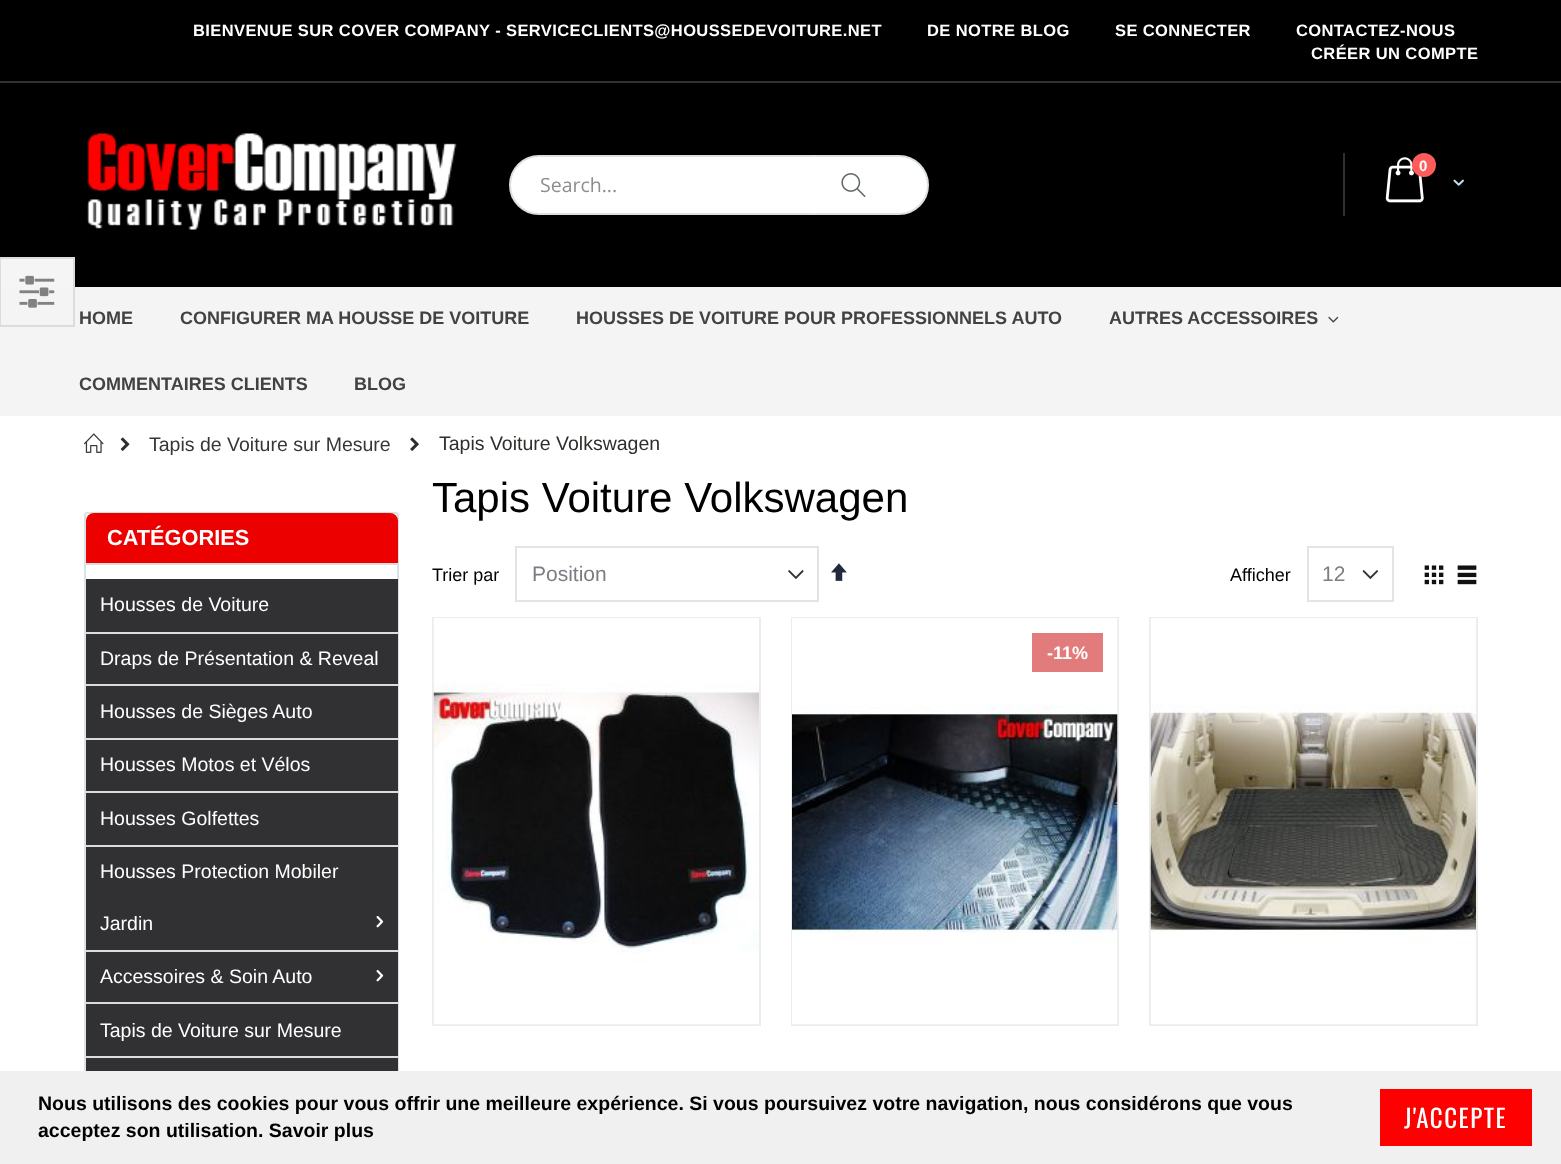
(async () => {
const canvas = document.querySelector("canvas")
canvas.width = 1561
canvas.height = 1164
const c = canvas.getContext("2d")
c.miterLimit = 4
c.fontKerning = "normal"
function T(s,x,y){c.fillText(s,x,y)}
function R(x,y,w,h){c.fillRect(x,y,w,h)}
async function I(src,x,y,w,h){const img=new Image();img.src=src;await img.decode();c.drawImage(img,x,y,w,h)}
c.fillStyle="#fff"
R(0,0,1561,1164)
c.fillStyle="#000"
R(0,0,1561,287)
c.fillStyle="#323232"
R(0,81,1561,2)
c.letterSpacing="0.4px"
c.font="bold 16.5px Liberation Sans"
c.fillStyle="#fff"
T("BIENVENUE SUR COVER COMPANY - SERVICECLIENTS@HOUSSEDEVOITURE.NET",193,36)
T("DE NOTRE BLOG",927,36)
T("SE CONNECTER",1115,36)
T("CONTACTEZ-NOUS",1296,36)
T("CRÉER UN COMPTE",1311,59)
await I("1.png",87,133,370,97)
c.fillStyle="#323232"
R(1343,153,2,63)
await I("2.png",1385,157,39,46)
c.fillStyle="#ff5b5b"
c.beginPath()
c.arc(1424,165,12,0,7)
c.fill()
c.letterSpacing="0px"
c.font="bold 15px Liberation Sans"
c.fillStyle="#fff"
T("0",1419,171)
await I("3.png",1453,179,11,7)
c.beginPath()
c.roundRect(510,156,418,58,29)
c.fill()
c.strokeStyle="#dbe0e2"
c.lineWidth=2
c.stroke()
c.font="19.5px Open Sans"
c.fillStyle="#8d8d8d"
T("Search...",540,192)
c.fillStyle="#ffffff33"
R(813,155,2,60)
await I("4.png",841,173,25,24)
c.fillStyle="#f4f4f4"
R(0,287,1561,129)
c.font="bold 18px Liberation Sans"
c.fillStyle="#424242"
T("HOME",79,324)
T("CONFIGURER MA HOUSSE DE VOITURE",180,324)
T("HOUSSES DE VOITURE POUR PROFESSIONNELS AUTO",576,324)
T("AUTRES ACCESSOIRES",1109,324)
await I("5.png",1328,316,11,7)
T("COMMENTAIRES CLIENTS",79,390)
T("BLOG",354,390)
await I("6.png",84,433,20,20)
await I("7.png",120,437,10,14)
c.font="19.5px Liberation Sans"
c.fillStyle="#363636"
T("Tapis de Voiture sur Mesure",149,451)
await I("8.png",410,437,9,14)
c.fillStyle="#302e2a"
T("Tapis Voiture Volkswagen",439,450)
c.fillStyle="#f5f5f5"
R(1,259,72,28)
c.strokeStyle="#dcdcda"
c.strokeRect(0,258,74,68)
await I("9.png",19,275,36,33)
c.beginPath()
c.roundRect(85,513,313,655,2)
c.strokeStyle="#dae2e6"
c.stroke()
c.fillStyle="#ed0000"
c.beginPath()
c.roundRect(86,513,312,51,[8,8,0,0])
c.fill()
c.fillStyle="#ddd"
R(86,563,312,2)
c.font="bold 21.75px Liberation Sans"
c.fillStyle="#fff"
T("CATÉGORIES",107,545)
c.fillStyle="#313133"
R(86,579,312,492)
c.font="19.5px Liberation Sans"
c.fillStyle="#fff"
T("Housses de Voiture",100,611)
c.fillStyle="#ddd"
R(86,632,312,2)
c.fillStyle="#fff"
T("Draps de Présentation & Reveal",100,665)
c.fillStyle="#ddd"
R(86,684,312,2)
c.fillStyle="#fff"
T("Housses de Sièges Auto",100,718)
c.fillStyle="#ddd"
R(86,738,312,2)
c.fillStyle="#fff"
T("Housses Motos et Vélos",100,771)
c.fillStyle="#ddd"
R(86,791,312,2)
c.fillStyle="#fff"
T("Housses Golfettes",100,825)
c.fillStyle="#ddd"
R(86,845,312,2)
c.fillStyle="#fff"
T("Housses Protection Mobiler",100,878)
T("Jardin",100,930)
await I("10.png",376,916,8,12)
c.fillStyle="#ddd"
R(86,950,312,2)
c.fillStyle="#fff"
T("Accessoires & Soin Auto",100,983)
await I("10.png",376,970,8,12)
c.fillStyle="#ddd"
R(86,1002,312,2)
c.fillStyle="#fff"
T("Tapis de Voiture sur Mesure",100,1037)
c.fillStyle="#ddd"
R(86,1056,312,2)
c.font="42px Liberation Sans"
c.fillStyle="#000"
T("Tapis Voiture Volkswagen",432,512)
c.font="18px Liberation Sans"
T("Trier par",432,581)
await I("11.png",788,569,16,11)
c.strokeStyle="#e4e4e4"
c.strokeRect(516,547,302,54)
c.font="21px Liberation Sans"
c.fillStyle="#7a7d82"
T("Position",532,581)
await I("12.png",831,563,16,18)
c.font="18px Liberation Sans"
c.fillStyle="#000"
T("Afficher",1230,581)
await I("13.png",1362,569,17,11)
c.strokeRect(1308,547,85,54)
c.font="21px Liberation Sans"
c.fillStyle="#7a7d82"
T("12",1322,581)
await I("14.png",1424,565,20,20)
await I("15.png",1457,565,20,20)
c.strokeStyle="#ececec"
c.strokeRect(433,618,327,407)
await I("16.png",433,618,326,407)
c.strokeRect(792,618,326,407)
await I("17.png",792,618,326,407)
c.fillStyle="#e27c7c"
R(1032,633,71,39)
c.font="bold 18px Liberation Sans"
c.fillStyle="#fff"
T("-11%",1047,659)
c.strokeRect(1150,618,327,407)
await I("18.png",1150,618,326,407)
c.fillStyle="#f0f0f0"
R(0,1071,1561,93)
c.font="bold 19.5px Liberation Sans"
c.fillStyle="#000"
T("Nous utilisons des cookies pour vous offrir une meilleure expérience. Si vous poursuivez votre navigation, nous considérons que vous",38,1110)
T("acceptez son utilisation. Savoir plus",38,1137)
c.fillStyle="#f00"
R(1380,1089,152,57)
c.letterSpacing="1.5px"
c.font="25px Oswald"
c.fillStyle="#fff"
T("J'ACCEPTE",1404,1128)
})()
